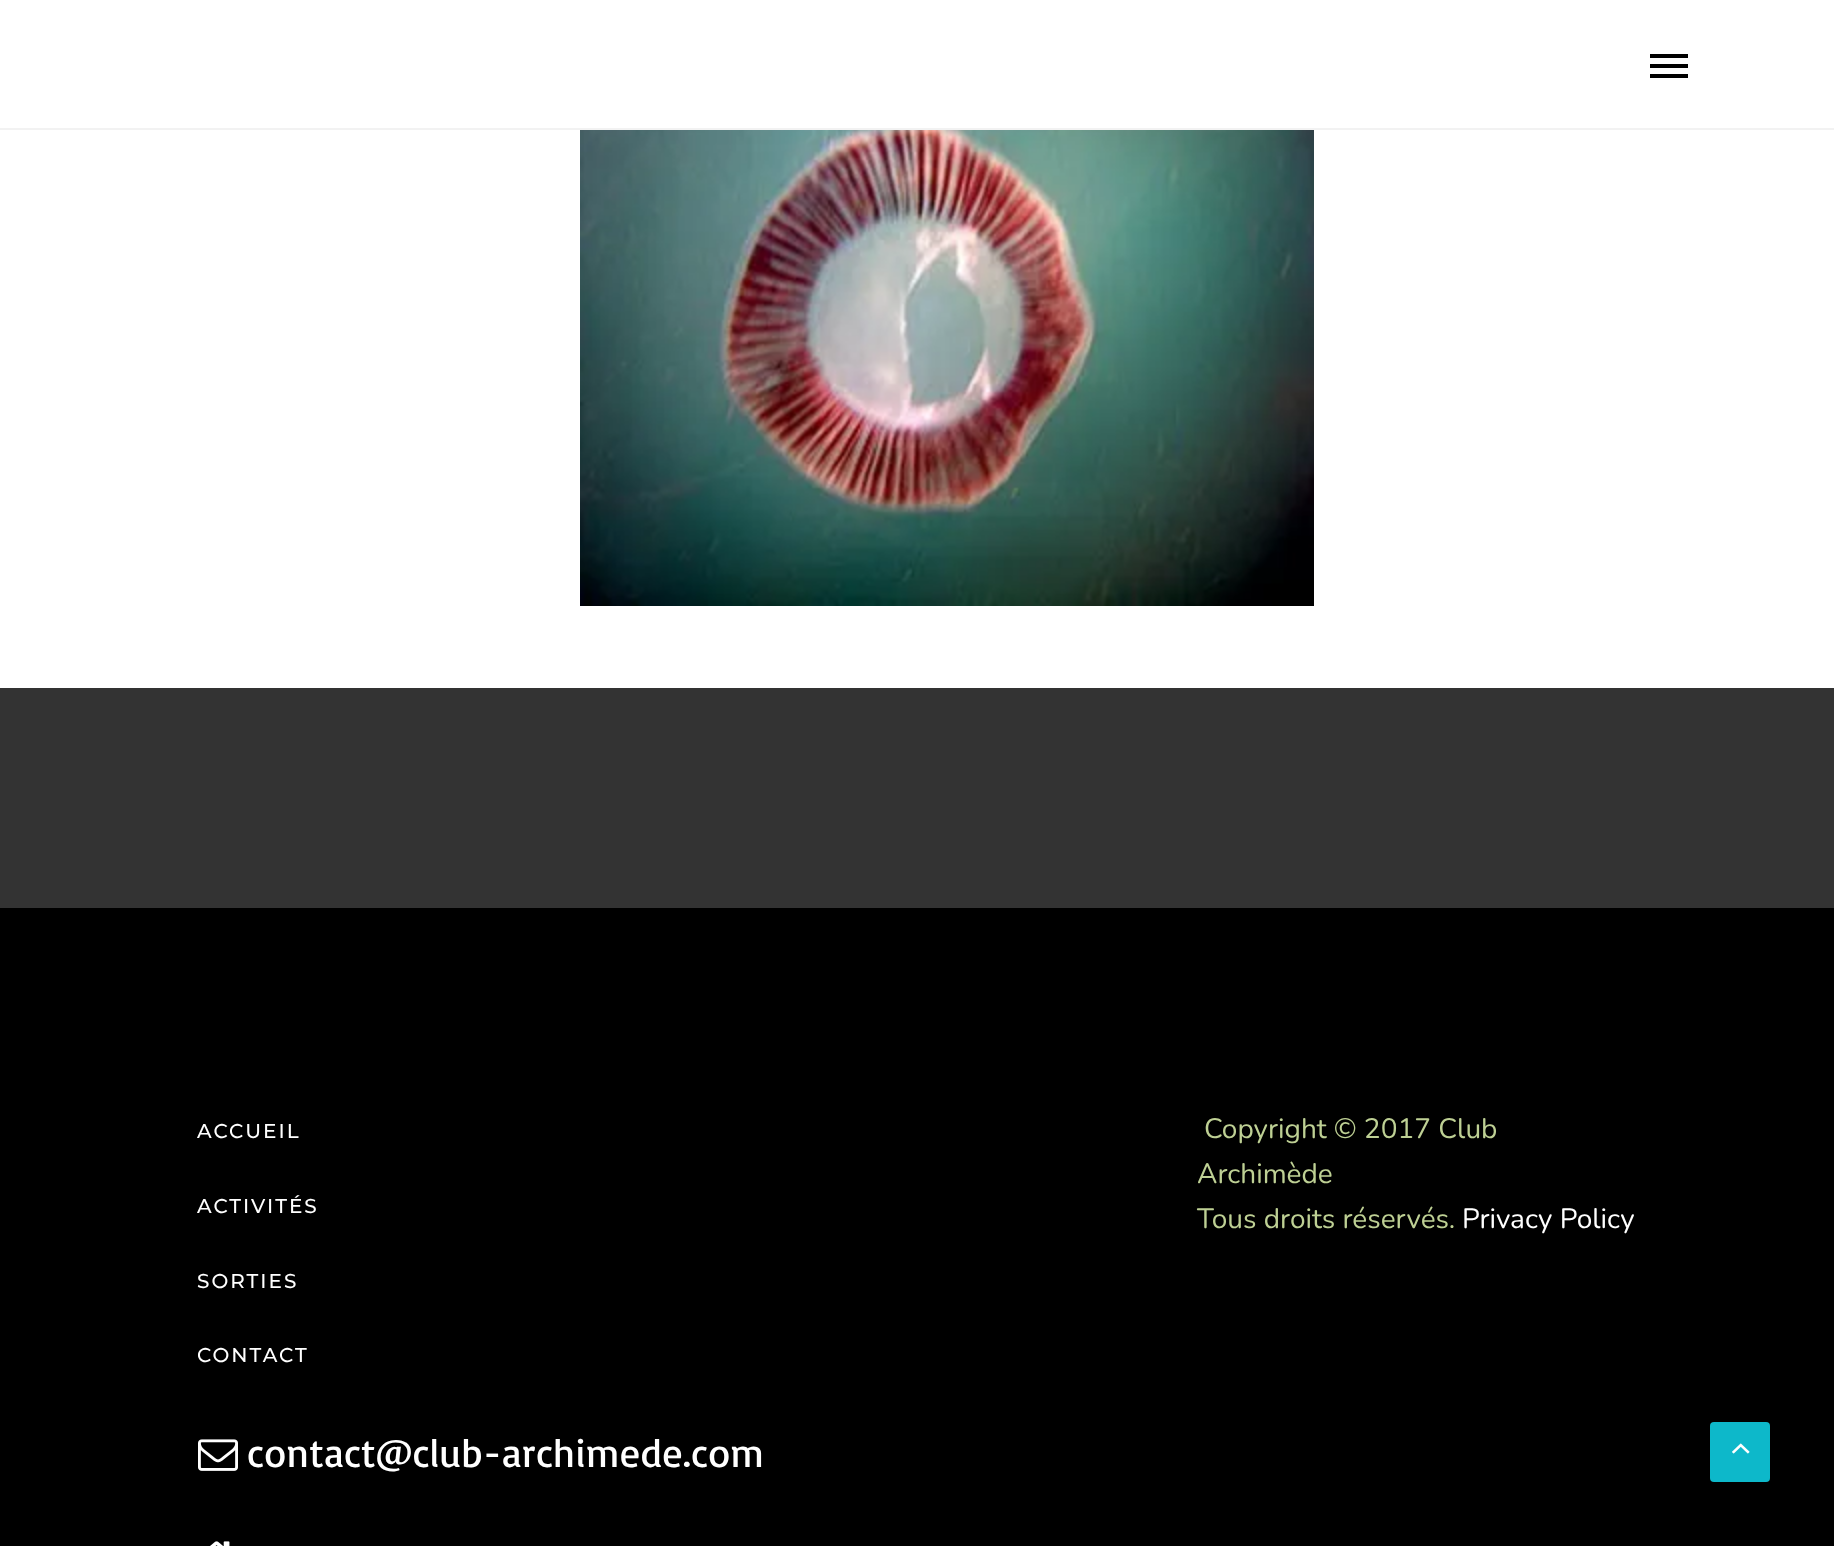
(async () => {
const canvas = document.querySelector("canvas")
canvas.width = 1834
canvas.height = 1546
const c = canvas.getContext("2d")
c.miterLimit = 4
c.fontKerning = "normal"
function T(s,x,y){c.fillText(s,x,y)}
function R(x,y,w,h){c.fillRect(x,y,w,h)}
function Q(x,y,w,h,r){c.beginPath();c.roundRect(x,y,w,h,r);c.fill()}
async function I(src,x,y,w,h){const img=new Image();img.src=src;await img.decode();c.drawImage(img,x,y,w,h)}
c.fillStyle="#fff"
R(0,0,1834,1546)
c.fillStyle="#f2f2f2"
R(0,128,1834,2)
c.fillStyle="#000"
R(1650,54,38,4)
R(1650,64,38,4)
R(1650,74,38,4)
await I("1.png",580,130,734,476)
c.fillStyle="#333"
R(0,688,1834,220)
c.fillStyle="#000"
R(0,908,1834,638)
c.letterSpacing="2px"
c.font="500 20px Montserrat"
c.fillStyle="#fff"
T("ACCUEIL",197,1138)
T("ACTIVITÉS",197,1213)
T("SORTIES",197,1288)
T("CONTACT",197,1362)
await I("2.png",198,1439,40,32)
c.letterSpacing="0.4px"
c.font="40px Basic"
T("contact@club-archimede.com",247,1467)
await I("3.png",210,1541,20,5)
c.letterSpacing="0px"
c.font="28px Nunito"
c.fillStyle="#bed094"
T("Copyright © 2017 Club",1204,1138)
T("Archimède",1197,1183)
T("Tous droits réservés.",1197,1228)
c.fillStyle="#fff"
T("Privacy Policy",1462,1228)
c.fillStyle="#0db8ca"
Q(1710,1422,60,60,4)
await I("4.png",1732,1443,18,11)
})()
